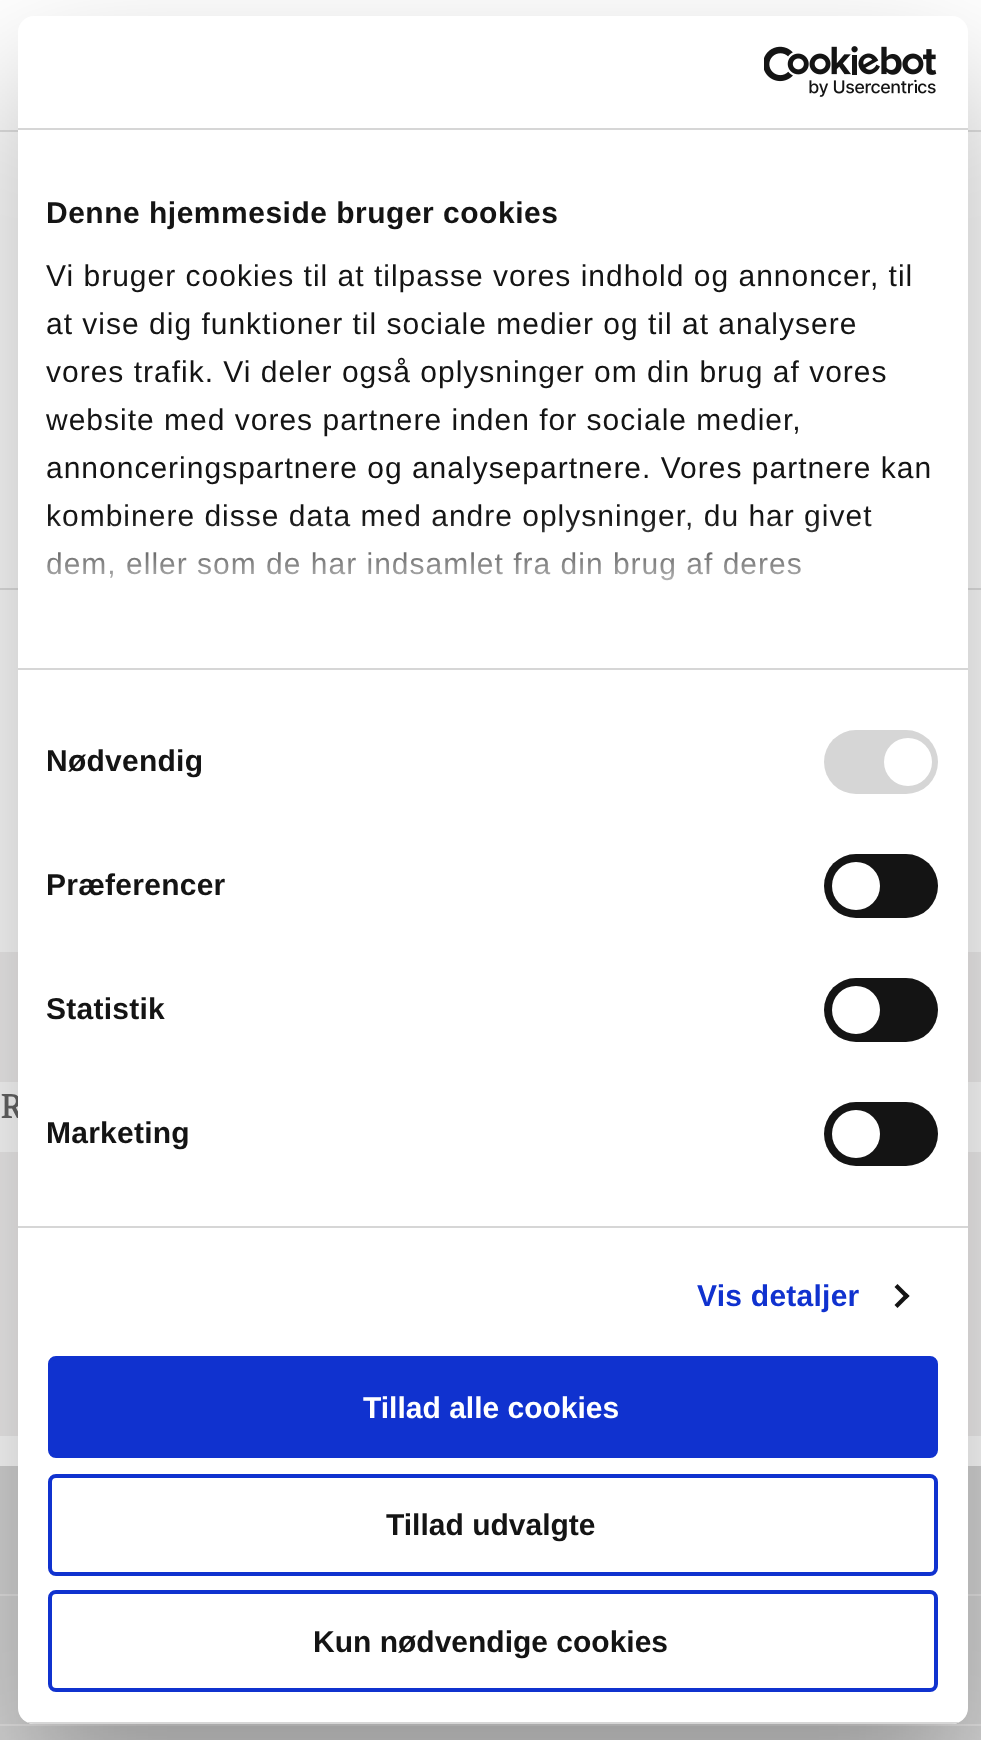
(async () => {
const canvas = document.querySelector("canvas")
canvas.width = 981
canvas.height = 1740
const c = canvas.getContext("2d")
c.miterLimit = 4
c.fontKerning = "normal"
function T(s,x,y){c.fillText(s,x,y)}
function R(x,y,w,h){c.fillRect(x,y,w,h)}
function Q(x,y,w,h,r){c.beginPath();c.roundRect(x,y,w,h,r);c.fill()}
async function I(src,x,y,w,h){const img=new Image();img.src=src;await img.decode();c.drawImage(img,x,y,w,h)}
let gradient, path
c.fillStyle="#fff"
R(0,0,981,1740)
c.fillStyle="#e2e2e2"
R(0,130,981,2)
R(0,588,981,2)
c.fillStyle="#f2f0f0"
R(0,952,981,130)
c.font="bold 32px Amethysta"
c.fillStyle="#666"
T("R",0,1118)
c.fillStyle="#f2f0f0"
R(0,1152,981,284)
c.fillStyle="#d6d6d6"
R(0,1466,981,128)
c.fillStyle="#e5e4e4"
R(0,1594,981,2)
c.fillStyle="#d6d6d6"
R(0,1596,981,128)
c.fillStyle="#e5e4e4"
R(0,1724,981,2)
c.fillStyle="#d6d6d6"
R(0,1726,981,14)
c.fillStyle="#0000004d"
c.filter="blur(68px)"
c.beginPath()
c.roundRect(18,80,950,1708,16)
c.fill()
c.filter="none"
c.fillStyle="#fff"
Q(18,16,950,1708,16)
c.fillStyle="#d6d6d6"
R(18,128,950,2)
await I("1.png",764,46,173,51)
R(18,668,950,2)
c.letterSpacing="0.5px"
c.font="bold 30px Liberation Sans"
c.fillStyle="#141414"
T("Denne hjemmeside bruger cookies",46,223)
c.letterSpacing="1px"
c.font="30px Liberation Sans"
T("Vi bruger cookies til at tilpasse vores indhold og annoncer, til",46,286)
T("at vise dig funktioner til sociale medier og til at analysere",46,334)
T("vores trafik. Vi deler også oplysninger om din brug af vores",46,382)
T("website med vores partnere inden for sociale medier,",46,430)
T("annonceringspartnere og analysepartnere. Vores partnere kan",46,478)
T("kombinere disse data med andre oplysninger, du har givet",46,526)
T("dem, eller som de har indsamlet fra din brug af deres",46,574)
gradient = c.createLinearGradient(479,668,479,518)
gradient.addColorStop(0,"#fff")
gradient.addColorStop(.5,"#ffffffcc")
gradient.addColorStop(1,"#ffffff00")
c.fillStyle = gradient
R(47,520,825,61)
c.fillStyle="#d6d6d6"
R(18,1226,950,2)
c.letterSpacing="0.25px"
c.font="bold 30px Liberation Sans"
c.fillStyle="#141414"
T("Nødvendig",46,771)
c.fillStyle="#d6d6d6"
Q(824,730,114,64,32)
c.fillStyle="#fff"
c.beginPath()
c.arc(908,762,24,0,7)
c.fill()
c.fillStyle="#141414"
T("Præferencer",46,895)
Q(824,854,114,64,32)
c.fillStyle="#fff"
c.beginPath()
c.arc(856,886,24,0,7)
c.fill()
c.fillStyle="#141414"
T("Statistik",46,1019)
Q(824,978,114,64,32)
c.fillStyle="#fff"
c.beginPath()
c.arc(856,1010,24,0,7)
c.fill()
c.fillStyle="#141414"
T("Marketing",46,1143)
Q(824,1102,114,64,32)
c.fillStyle="#fff"
c.beginPath()
c.arc(856,1134,24,0,7)
c.fill()
c.fillStyle="#1032cf"
T("Vis detaljer",697,1306)
c.fillStyle="#141414"
path = new Path2D("M897.5 1284l12 12l-3 3l-12-12z")
c.fill(path)
path = new Path2D("M906.5 1293l3 3l-12 12l-3-3z")
c.fill(path)
c.save()
c.beginPath()
c.roundRect(18,16,950,1708,16)
c.clip()
c.fillStyle="#d6d6d6"
R(18,1722,950,2)
c.restore()
c.fillStyle="#1032cf"
c.beginPath()
c.roundRect(50,1358,886,98,6)
c.fill()
c.strokeStyle="#1032cf"
c.lineWidth=4
c.stroke()
c.letterSpacing="0px"
c.fillStyle="#fff"
T("Tillad alle cookies",363,1418)
c.beginPath()
c.roundRect(50,1476,886,98,6)
c.stroke()
c.fillStyle="#141414"
T("Tillad udvalgte",386,1535)
c.beginPath()
c.roundRect(50,1592,886,98,6)
c.stroke()
T("Kun nødvendige cookies",313,1652)
})()
